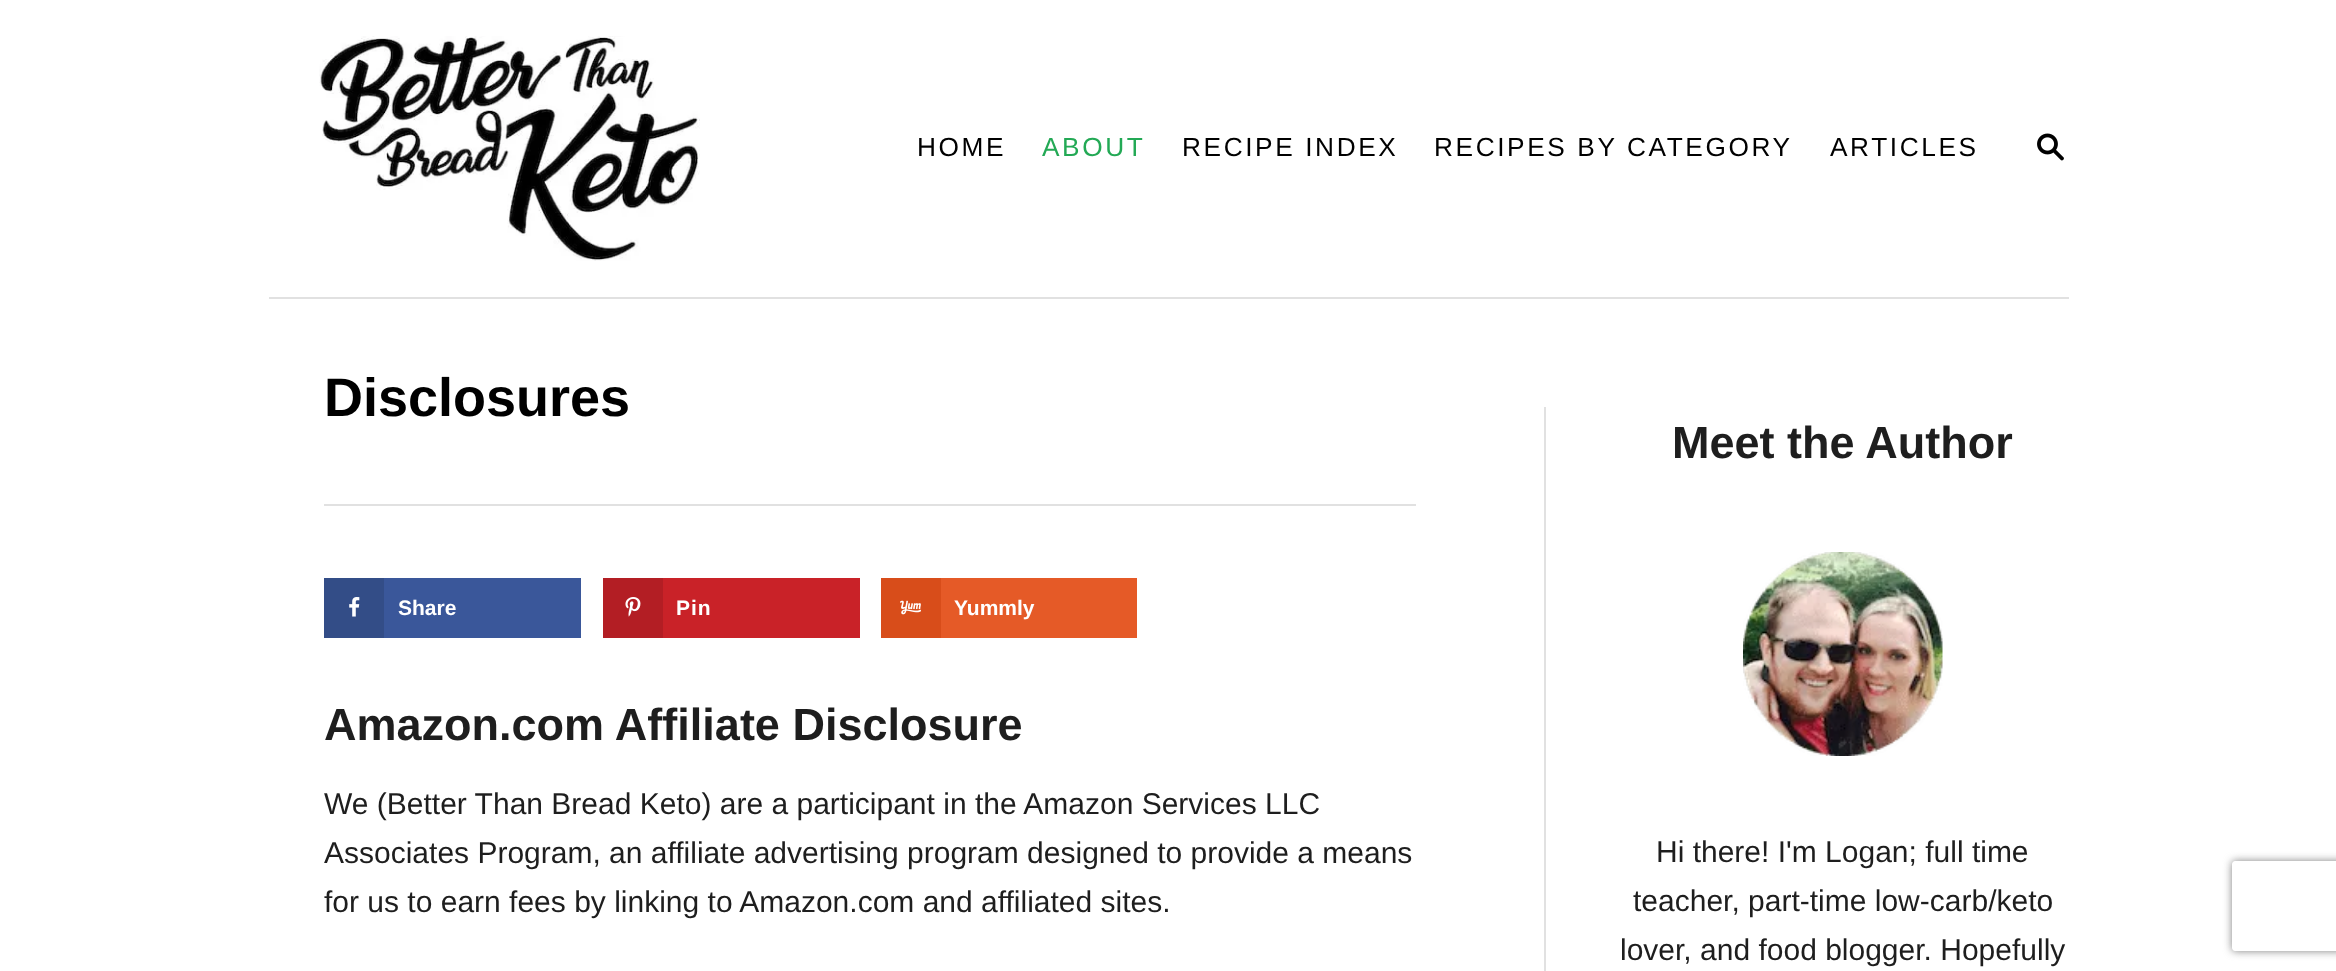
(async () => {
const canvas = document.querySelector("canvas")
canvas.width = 2336
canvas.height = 971
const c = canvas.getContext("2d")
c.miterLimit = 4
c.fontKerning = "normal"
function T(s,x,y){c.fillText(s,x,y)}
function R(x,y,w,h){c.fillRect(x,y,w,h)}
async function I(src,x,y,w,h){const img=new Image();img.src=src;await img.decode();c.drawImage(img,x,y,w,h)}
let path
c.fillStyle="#fff"
R(0,0,2336,971)
c.fillStyle="#e1e1e1"
R(269,297,1800,2)
await I("1.png",319,36,381,225)
c.letterSpacing="2.6px"
c.font="26.25px Liberation Sans"
c.fillStyle="#000"
T("HOME",917,156)
c.fillStyle="#23a955"
T("ABOUT",1042,156)
c.fillStyle="#000"
T("RECIPE INDEX",1182,156)
T("RECIPES BY CATEGORY",1434,156)
T("ARTICLES",1830,156)
await I("2.png",2037,133,27,28)
c.fillStyle="#e1e1e1"
R(324,504,1092,2)
c.letterSpacing="0px"
c.font="bold 54px Liberation Sans"
c.fillStyle="#000"
T("Disclosures",324,416)
c.fillStyle="#3a579a"
R(384,578,197,60)
c.fillStyle="#334d87"
R(324,578,60,60)
await I("3.png",349,597,11,20)
c.font="bold 21px Liberation Sans"
c.fillStyle="#fff"
T("Share",398,615)
c.fillStyle="#c92228"
R(663,578,197,60)
c.fillStyle="#b31e24"
R(603,578,60,60)
await I("4.png",625,597,16,20)
c.letterSpacing="1px"
c.fillStyle="#fff"
T("Pin",676,615)
c.fillStyle="#e55a27"
R(941,578,196,60)
c.fillStyle="#d84d1a"
R(881,578,60,60)
await I("5.png",900,600,21,15)
c.letterSpacing="0px"
c.fillStyle="#fff"
T("Yummly",954,615)
c.font="bold 45px Liberation Sans"
c.fillStyle="#1e1e1e"
T("Amazon.com Affiliate Disclosure",324,740)
c.font="30px Liberation Sans"
T("We (Better Than Bread Keto) are a participant in the Amazon Services LLC",324,814)
T("Associates Program, an affiliate advertising program designed to provide a means",324,863)
T("for us to earn fees by linking to Amazon.com and affiliated sites.",324,912)
c.fillStyle="#e1e1e1"
R(1544,407,2,564)
c.font="bold 45px Liberation Sans"
c.fillStyle="#1e1e1e"
T("Meet the Author",1672,458)
await I("6.png",1743,552,200,204)
c.font="30px Liberation Sans"
T("Hi there! I'm Logan; full time",1656,862)
T("teacher, part-time low-carb/keto",1633,911)
T("lover, and food blogger. Hopefully",1620,960)
c.save()
path = new Path2D("M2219 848h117v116h-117zm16 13h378c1.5 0 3 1.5 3 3v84c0 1.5-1.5 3-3 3h-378c-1.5 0-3-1.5-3-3v-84c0-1.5 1.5-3 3-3z")
c.clip(path,"evenodd")
c.fillStyle="#808080"
c.filter="blur(4px)"
c.beginPath()
c.roundRect(2232,861,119,90,3)
c.fill()
c.filter="none"
c.restore()
})()
